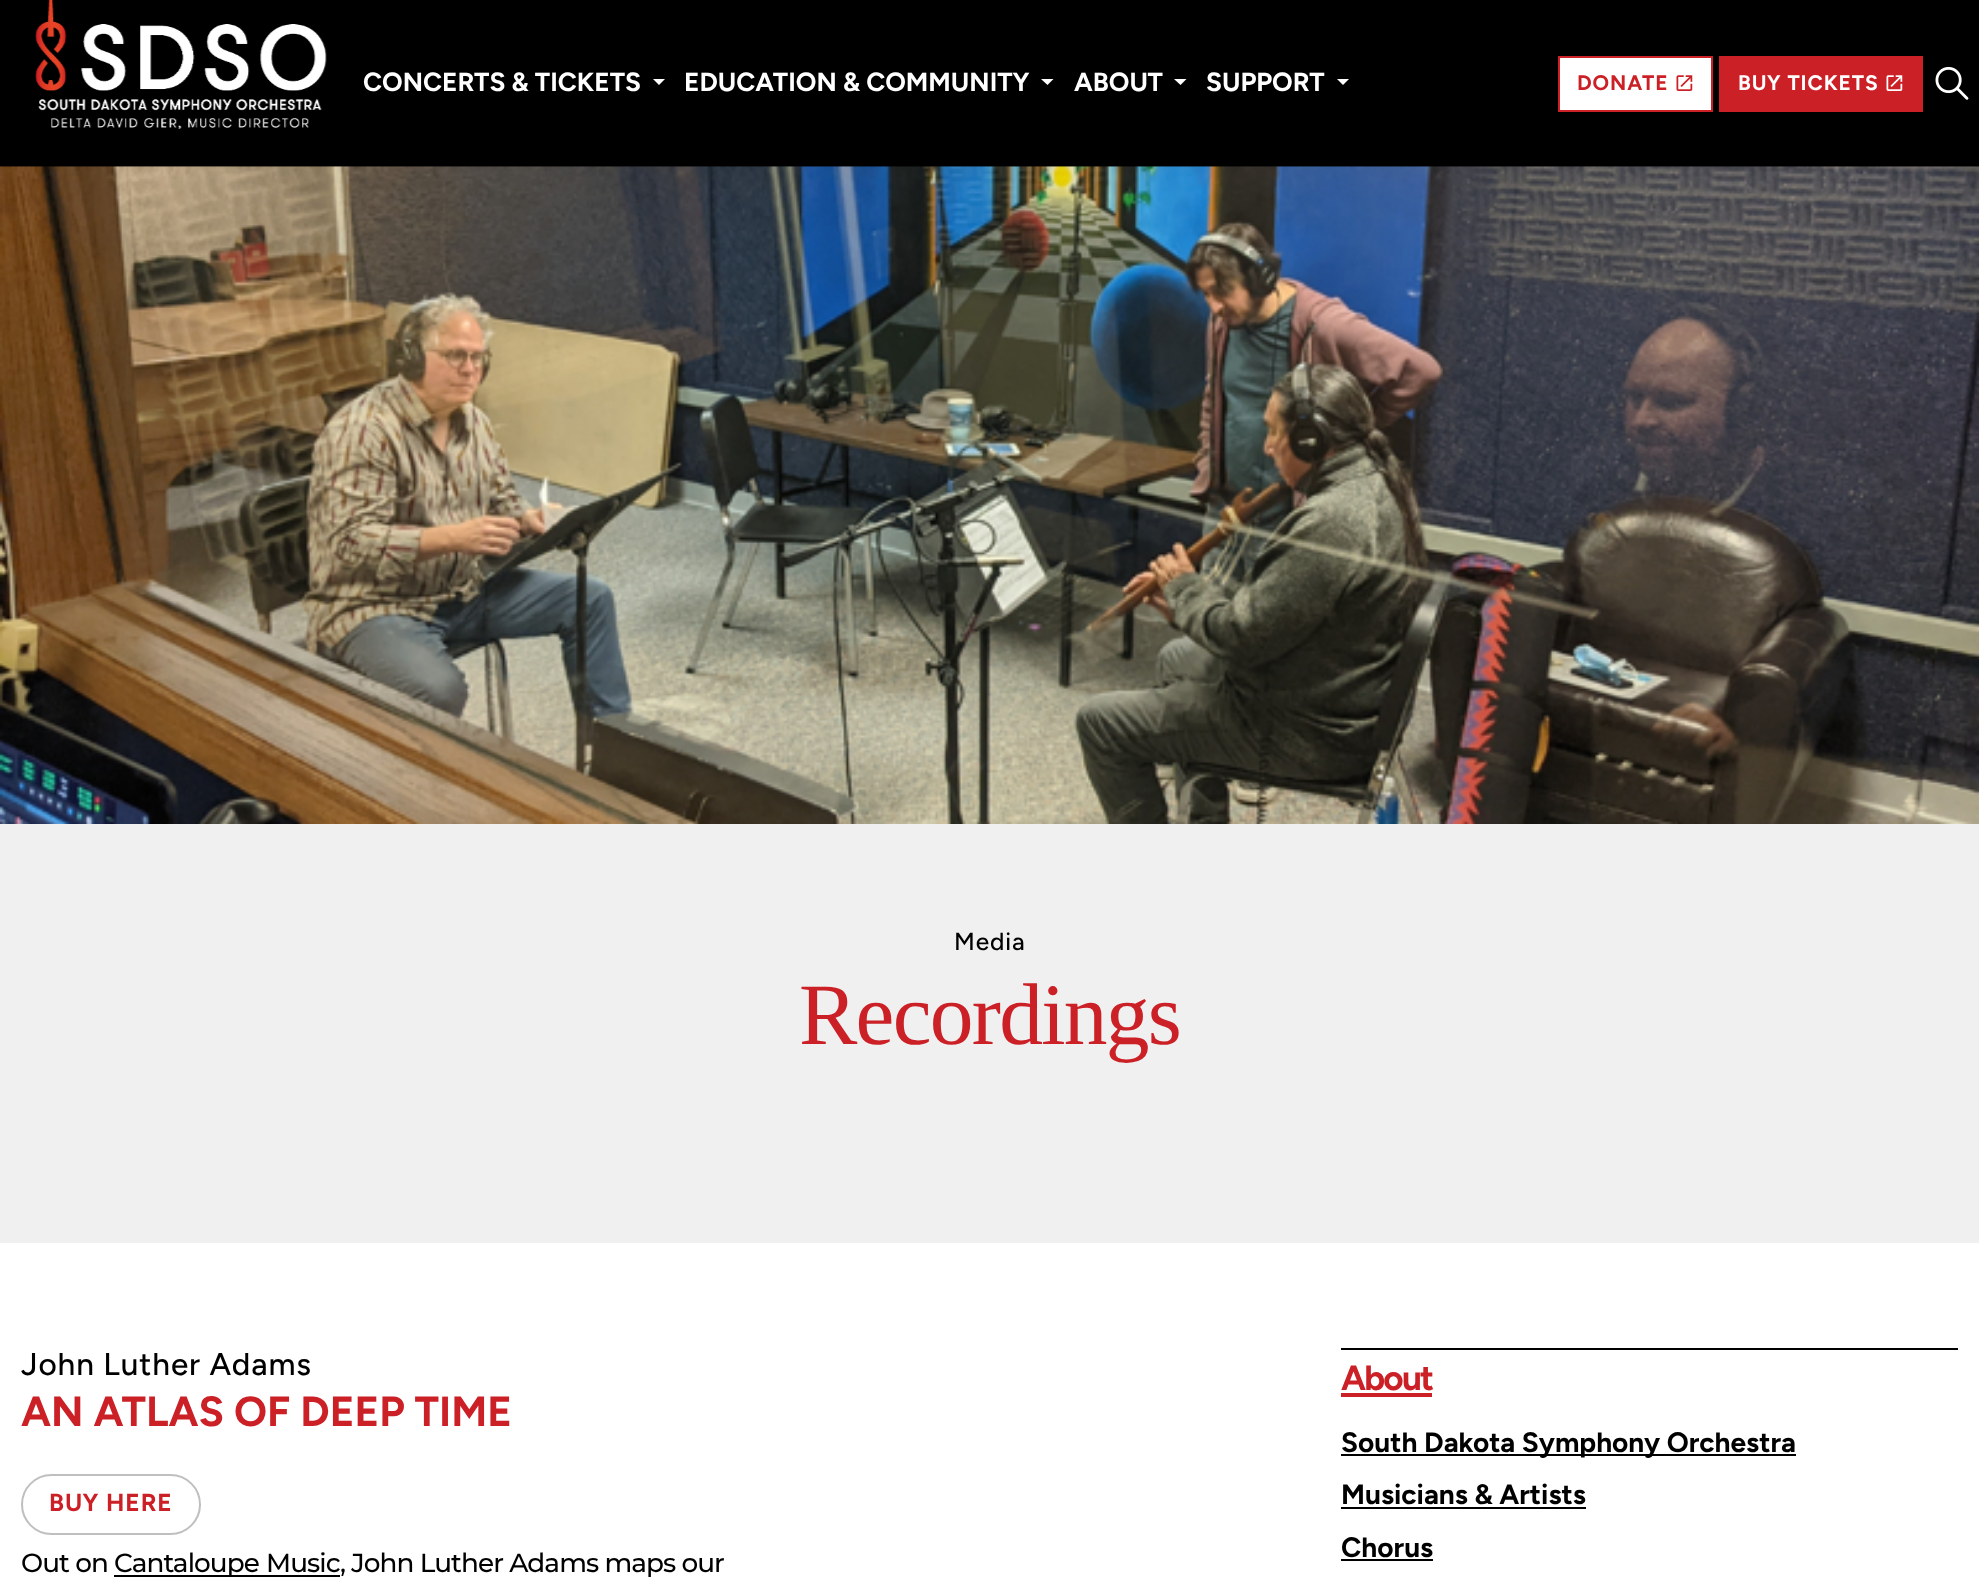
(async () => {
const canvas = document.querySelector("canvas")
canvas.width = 1979
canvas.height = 1583
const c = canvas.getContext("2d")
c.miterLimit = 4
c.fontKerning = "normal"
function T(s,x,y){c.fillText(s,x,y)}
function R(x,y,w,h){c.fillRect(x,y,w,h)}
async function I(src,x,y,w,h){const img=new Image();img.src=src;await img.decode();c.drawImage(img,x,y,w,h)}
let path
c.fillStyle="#000"
R(0,0,1979,1583)
await I("1.png",35,0,292,129)
c.font="bold 26.25px Figtree"
c.fillStyle="#fff"
T("CONCERTS & TICKETS",363,91)
path = new Path2D("M653 79h12l-6 6z")
c.fill(path)
T("EDUCATION & COMMUNITY",684,91)
path = new Path2D("M1041 79h12.5l-6 6z")
c.fill(path)
T("ABOUT",1074,91)
path = new Path2D("M1174 79h12.5l-6 6z")
c.fill(path)
T("SUPPORT",1206,91)
path = new Path2D("M1337 79h12l-6 6z")
c.fill(path)
c.beginPath()
c.rect(1559,57,153,54)
c.fill()
c.strokeStyle="#cc2027"
c.lineWidth=2
c.stroke()
c.letterSpacing="0.9px"
c.font="bold 21px Figtree"
c.fillStyle="#cc2027"
T("DONATE",1577,90)
await I("2.png",1676,75,17,16)
R(1719,56,204,56)
c.fillStyle="#fff"
T("BUY TICKETS",1738,90)
await I("3.png",1886,75,17,16)
await I("4.png",1935,66,34,34)
await I("5.png",0,166,1979,658)
c.fillStyle="#f0f0f0"
R(0,824,1979,419)
c.font="500 24.5px Figtree"
c.fillStyle="#000"
T("Media",954,950)
c.letterSpacing="-1.75px"
c.font="87.5px Liberation Serif"
c.fillStyle="#cc2027"
T("Recordings",799,1044)
c.fillStyle="#fff"
R(0,1243,1979,340)
c.letterSpacing="0.9px"
c.font="500 31.5px Figtree"
c.fillStyle="#000"
T("John Luther Adams",21,1375)
c.letterSpacing="0px"
c.font="bold 42px Figtree"
c.fillStyle="#cc2027"
T("AN ATLAS OF DEEP TIME",21,1426)
c.beginPath()
c.roundRect(22,1475,178,59,29.5)
c.strokeStyle="#bfbfbf"
c.stroke()
c.letterSpacing="0.9px"
c.font="bold 24.5px Figtree"
T("BUY HERE",49,1511)
c.letterSpacing="-0.9px"
c.font="500 26.25px Montserrat"
c.fillStyle="#000"
T("Out on",21,1572)
R(114,1575,226,2)
c.wordSpacing="1px"
T("Cantaloupe Music",114,1572)
c.wordSpacing="0px"
T(", John Luther Adams maps our",340,1572)
R(1341,1348,617,2)
c.letterSpacing="-1.75px"
c.font="bold 35px Figtree"
c.fillStyle="#cc2027"
T("About",1341,1390)
R(1341,1393,91,4)
c.fillStyle="#000"
R(1341,1454,455,2)
c.letterSpacing="0px"
c.font="bold 28px Figtree"
T("South Dakota Symphony Orchestra",1341,1452)
T("Musicians & Artists",1341,1504)
R(1341,1507,245,2)
T("Chorus",1341,1557)
R(1341,1559,92,2)
})()
